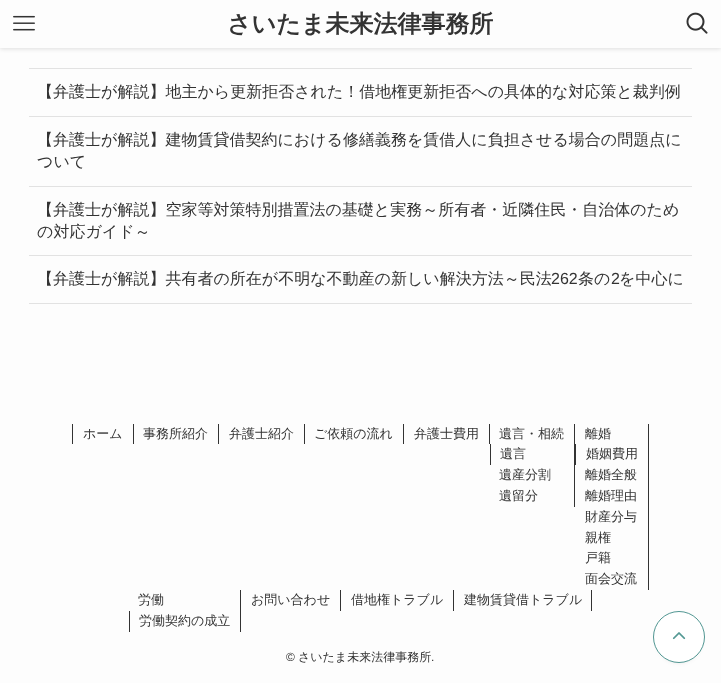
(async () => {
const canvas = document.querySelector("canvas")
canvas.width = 721
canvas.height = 683
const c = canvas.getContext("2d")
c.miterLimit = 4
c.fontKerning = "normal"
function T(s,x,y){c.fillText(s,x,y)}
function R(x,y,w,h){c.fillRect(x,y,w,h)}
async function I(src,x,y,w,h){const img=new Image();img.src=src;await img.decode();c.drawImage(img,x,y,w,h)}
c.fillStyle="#fdfdfd"
R(0,0,721,683)
c.fillStyle="#0000001f"
c.filter="blur(2px)"
c.beginPath()
c.rect(0,1,721,48)
c.fill()
c.filter="none"
c.fillStyle="#fdfdfd"
R(0,0,721,48)
await I("1.png",13,15,22,16)
c.font="bold 24px WenQuanYi Zen Hei"
c.fillStyle="#333"
T("さいたま未来法律事務所",227,32)
await I("2.png",686,12,22,22)
c.fillStyle="#e2e2e2"
R(29,68,663,1)
R(29,116,663,1)
c.font="500 16px WenQuanYi Zen Hei"
c.fillStyle="#333"
T("【弁護士が解説】地主から更新拒否された！借地権更新拒否への具体的な対応策と裁判例",37,97)
c.fillStyle="#e2e2e2"
R(29,186,663,1)
c.fillStyle="#333"
T("【弁護士が解説】建物賃貸借契約における修繕義務を賃借人に負担させる場合の問題点に",37,145)
T("ついて",37,167)
c.fillStyle="#e2e2e2"
R(29,255,663,1)
c.fillStyle="#333"
T("【弁護士が解説】空家等対策特別措置法の基礎と実務～所有者・近隣住民・自治体のため",37,215)
T("の対応ガイド～",37,237)
c.fillStyle="#e2e2e2"
R(29,303,663,1)
c.fillStyle="#333"
T("【弁護士が解説】共有者の所在が不明な不動産の新しい解決方法～民法",37,284)
c.font="16px Liberation Sans"
T("262",551,284)
c.font="500 16px WenQuanYi Zen Hei"
T("条の",578,284)
c.font="16px Liberation Sans"
T("2",611,284)
c.font="500 16px WenQuanYi Zen Hei"
T("を中心に",619,284)
R(133,424,1,20)
R(72,424,1,20)
c.font="500 13px WenQuanYi Zen Hei"
T("ホーム",83,438)
R(218,424,1,20)
T("事務所紹介",143,438)
R(304,424,1,20)
T("弁護士紹介",229,438)
R(403,424,1,20)
T("ご依頼の流れ",314,438)
R(489,424,1,20)
T("弁護士費用",414,438)
R(574,424,1,83)
T("遺言・相続",499,438)
R(490,444,1,21)
T("遺言",500,458)
T("遺産分割",499,479)
T("遺留分",499,500)
R(648,424,1,166)
T("離婚",585,438)
R(575,444,1,21)
T("婚姻費用",586,458)
T("離婚全般",585,479)
T("離婚理由",585,500)
T("財産分与",585,521)
T("親権",585,542)
T("戸籍",585,562)
T("面会交流",585,583)
R(240,590,1,42)
T("労働",138,604)
R(129,611,1,21)
T("労働契約の成立",139,625)
R(340,590,1,21)
T("お問い合わせ",251,604)
R(453,590,1,21)
T("借地権トラブル",351,604)
R(591,590,1,21)
T("建物賃貸借トラブル",464,604)
c.font="12px Liberation Sans"
T("©",286,661)
c.font="500 12px WenQuanYi Zen Hei"
T("さいたま未来法律事務所",298,661)
c.font="12px Liberation Sans"
T(".",431,661)
c.fillStyle="#3f3f3f1a"
c.filter="blur(2px)"
c.beginPath()
c.roundRect(657,619,44,44,22)
c.fill()
c.filter="none"
c.fillStyle="#fff"
c.beginPath()
c.arc(679,637,25.5,0,7)
c.fill()
c.strokeStyle="#529793"
c.stroke()
await I("3.png",672,632,14,8)
})()
